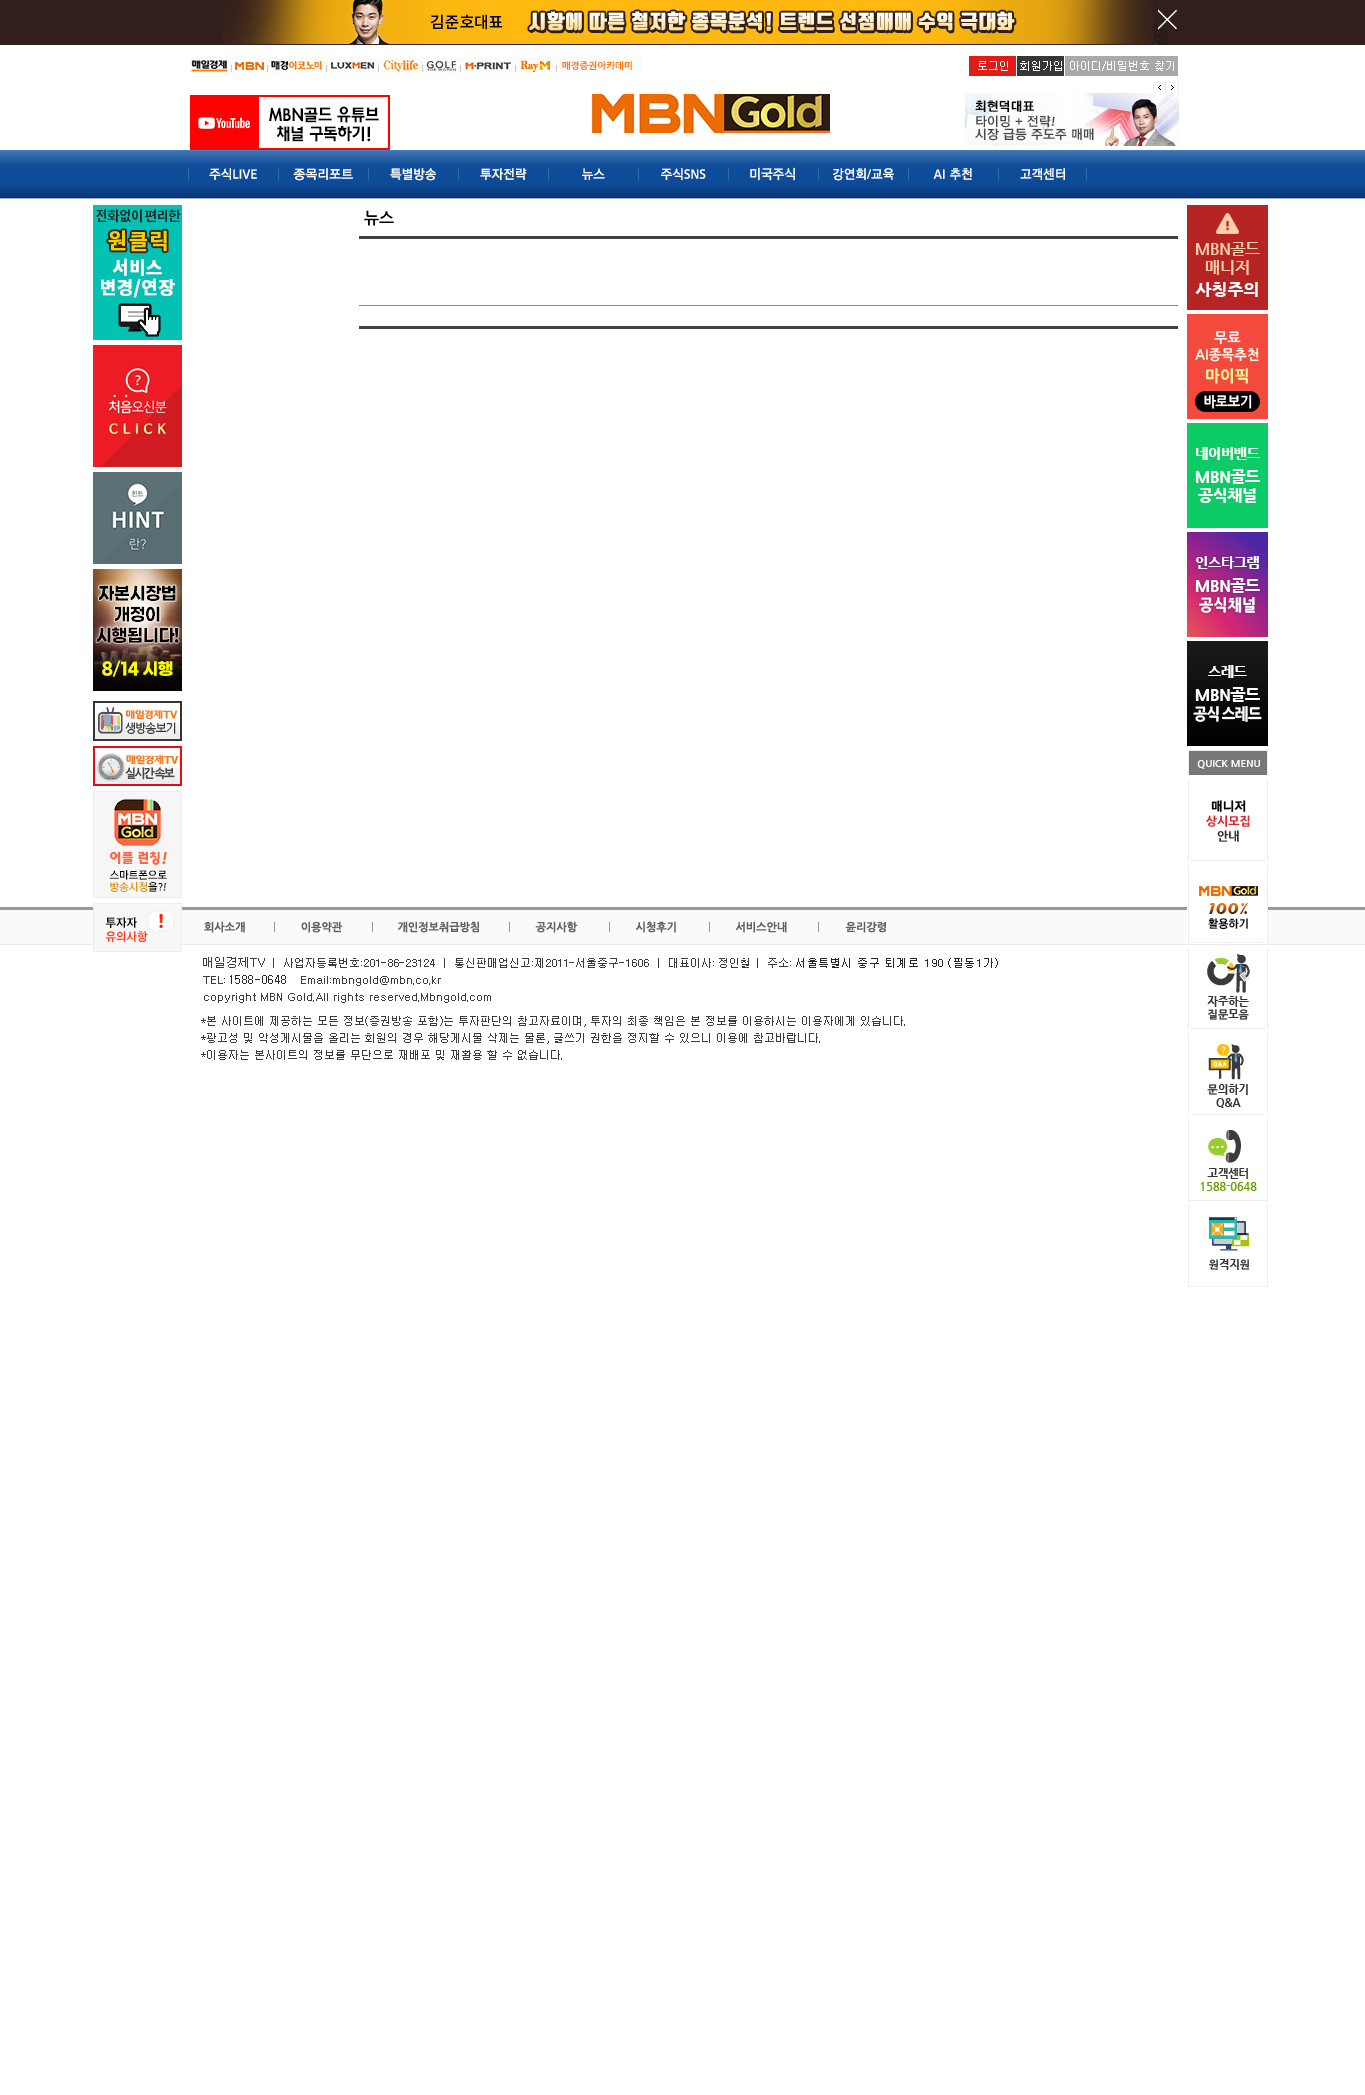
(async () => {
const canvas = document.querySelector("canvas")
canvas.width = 1365
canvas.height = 2095
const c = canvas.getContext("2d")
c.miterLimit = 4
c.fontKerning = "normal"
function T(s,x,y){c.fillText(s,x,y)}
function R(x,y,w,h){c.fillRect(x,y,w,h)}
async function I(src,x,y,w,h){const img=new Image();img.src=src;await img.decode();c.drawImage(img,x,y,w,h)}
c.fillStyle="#fff"
R(0,0,1365,2095)
c.fillStyle="#321f1b"
R(0,0,1365,45)
await I("1.png",222,0,931,44)
await I("2.png",1153,0,24,45)
await I("3.png",0,150,1365,49)
await I("4.png",189,57,453,16)
await I("5.png",969,56,47,20)
await I("6.png",1017,55,47,21)
await I("7.png",1065,56,113,20)
await I("8.png",1152,82,15,11)
await I("9.png",1167,82,12,11)
await I("10.png",190,95,200,55)
await I("11.png",592,94,238,39)
await I("12.png",965,93,214,53)
await I("13.png",188,166,69,16)
await I("14.png",278,166,77,16)
await I("15.png",368,166,69,16)
await I("16.png",458,166,69,16)
await I("17.png",548,166,57,16)
await I("18.png",638,166,71,16)
await I("19.png",728,166,67,16)
await I("20.png",818,166,77,16)
await I("21.png",908,166,64,16)
await I("22.png",998,166,89,16)
await I("23.png",93,205,89,135)
await I("24.png",93,345,89,122)
await I("25.png",93,472,89,92)
await I("26.png",93,569,89,122)
await I("27.png",93,701,89,40)
await I("28.png",93,746,89,40)
await I("29.png",93,791,89,107)
await I("43.png",0,907,1365,38)
await I("30.png",93,903,89,49)
c.font="bold 16px NanumGothic"
c.fillStyle="#000"
T("뉴스",364,224)
c.fillStyle="#414141"
R(359,236,819,3)
R(359,326,819,3)
c.fillStyle="#858585"
R(359,305,819,1)
await I("31.png",1187,205,81,105)
await I("32.png",1187,314,81,105)
await I("33.png",1187,423,81,105)
await I("34.png",1187,532,81,105)
await I("35.png",1187,641,81,105)
await I("36.png",1188,750,80,25)
await I("37.png",1188,779,80,82)
await I("38.png",1187,865,81,79)
await I("39.png",1188,948,80,81)
await I("40.png",1188,1033,80,82)
await I("41.png",1188,1119,80,82)
await I("42.png",1188,1205,80,82)
await I("44.png",201,921,797,139)
})()
